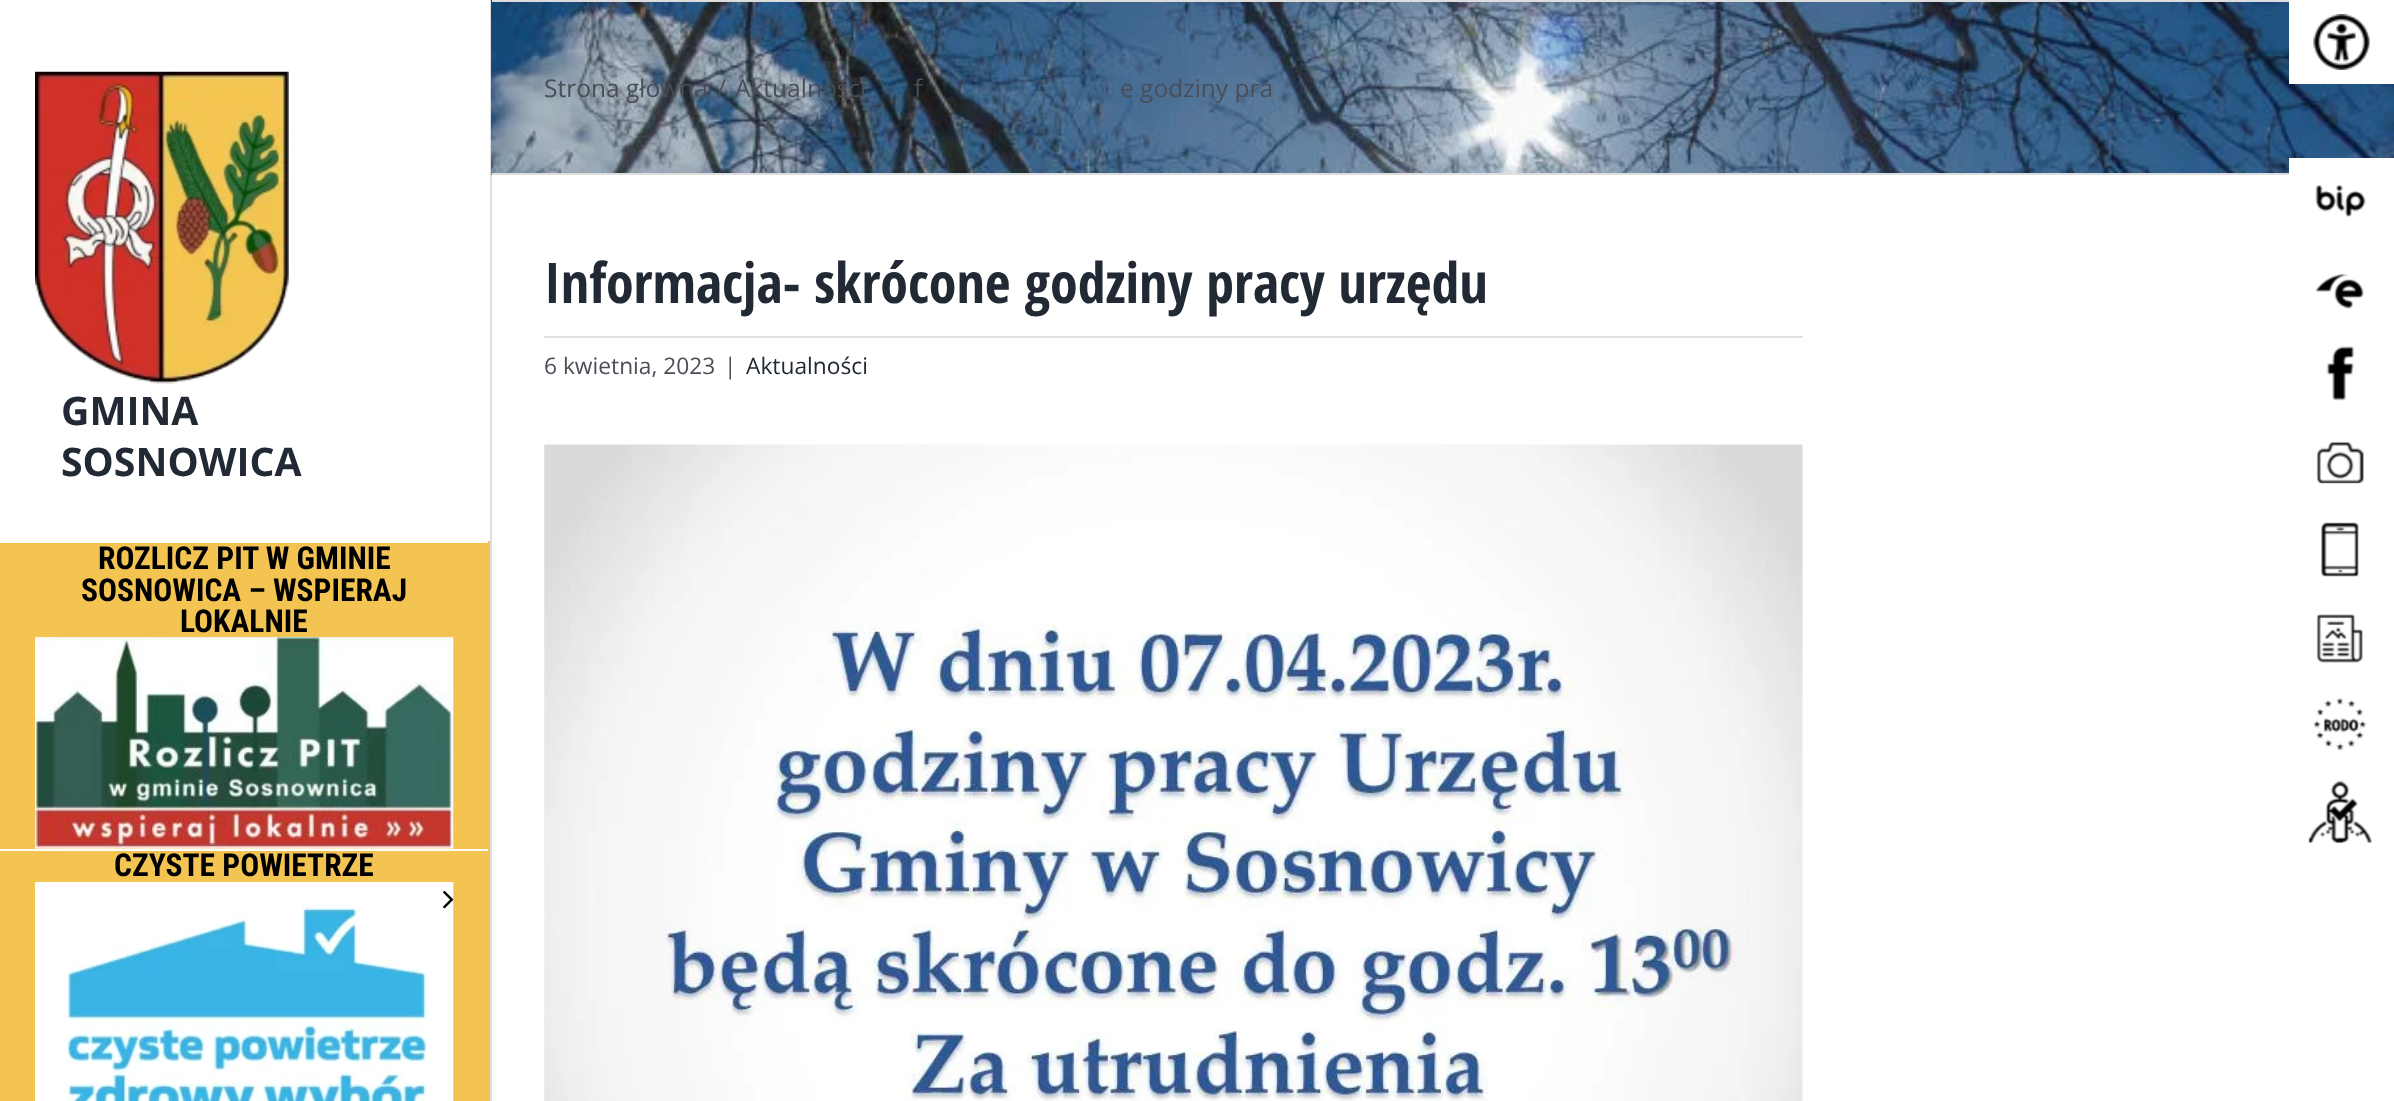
(async () => {
const canvas = document.querySelector("canvas")
canvas.width = 2394
canvas.height = 1101
const c = canvas.getContext("2d")
c.miterLimit = 4
c.fontKerning = "normal"
function T(s,x,y){c.fillText(s,x,y)}
function R(x,y,w,h){c.fillRect(x,y,w,h)}
async function I(src,x,y,w,h){const img=new Image();img.src=src;await img.decode();c.drawImage(img,x,y,w,h)}
c.fillStyle="#fff"
R(0,0,2394,1101)
c.fillStyle="#ddd"
R(490,0,2,1101)
await I("2.png",491,0,1903,175)
c.fillStyle="#fff"
R(2289,0,105,84)
await I("1.png",2313,14,57,56)
c.fillStyle="#ddd"
R(492,0,1797,2)
R(492,173,1797,2)
c.font="24.5px Open Sans"
c.fillStyle="#4a4e57"
T("Strona główna",544,97)
T("/",717,97)
T("Aktualności",735,97)
T("f",914,97)
T("e godziny pra",1120,97)
c.font="bold 56px Open Sans Condensed"
c.fillStyle="#212934"
T("Informacja- skrócone godziny pracy urzędu",544,303)
c.fillStyle="#e2e2e2"
R(544,336,1259,2)
c.font="22.75px Open Sans"
c.fillStyle="#4a4e57"
T("6 kwietnia, 2023",544,374)
T("|",724,374)
c.fillStyle="#212934"
T("Aktualności",746,374)
await I("3.png",544,444,1259,657)
c.fillStyle="#fff"
R(2289,158,105,17)
await I("4.png",2315,185,51,32)
await I("5.png",2315,273,49,36)
await I("6.png",2326,346,29,55)
await I("7.png",2316,441,48,43)
await I("8.png",2321,522,38,55)
await I("9.png",2316,614,47,49)
await I("10.png",2313,697,54,54)
await I("11.png",2308,780,65,63)
await I("12.png",35,71,254,313)
c.font="bold 39.25px Open Sans"
c.fillStyle="#212934"
T("GMINA",61,425)
T("SOSNOWICA",61,476)
c.fillStyle="#f4c452"
R(0,541,490,560)
c.fillStyle="#fff"
R(0,541,488,2)
R(0,849,488,2)
c.font="bold 31.5px Roboto Condensed"
c.fillStyle="#000"
T("ROZLICZ PIT W GMINIE",98,569)
T("SOSNOWICA – WSPIERAJ",81,601)
T("LOKALNIE",180,632)
await I("13.png",35,637,419,212)
T("CZYSTE POWIETRZE",114,876)
await I("14.png",35,882,419,219)
await I("15.png",443,890,11,19)
})()
